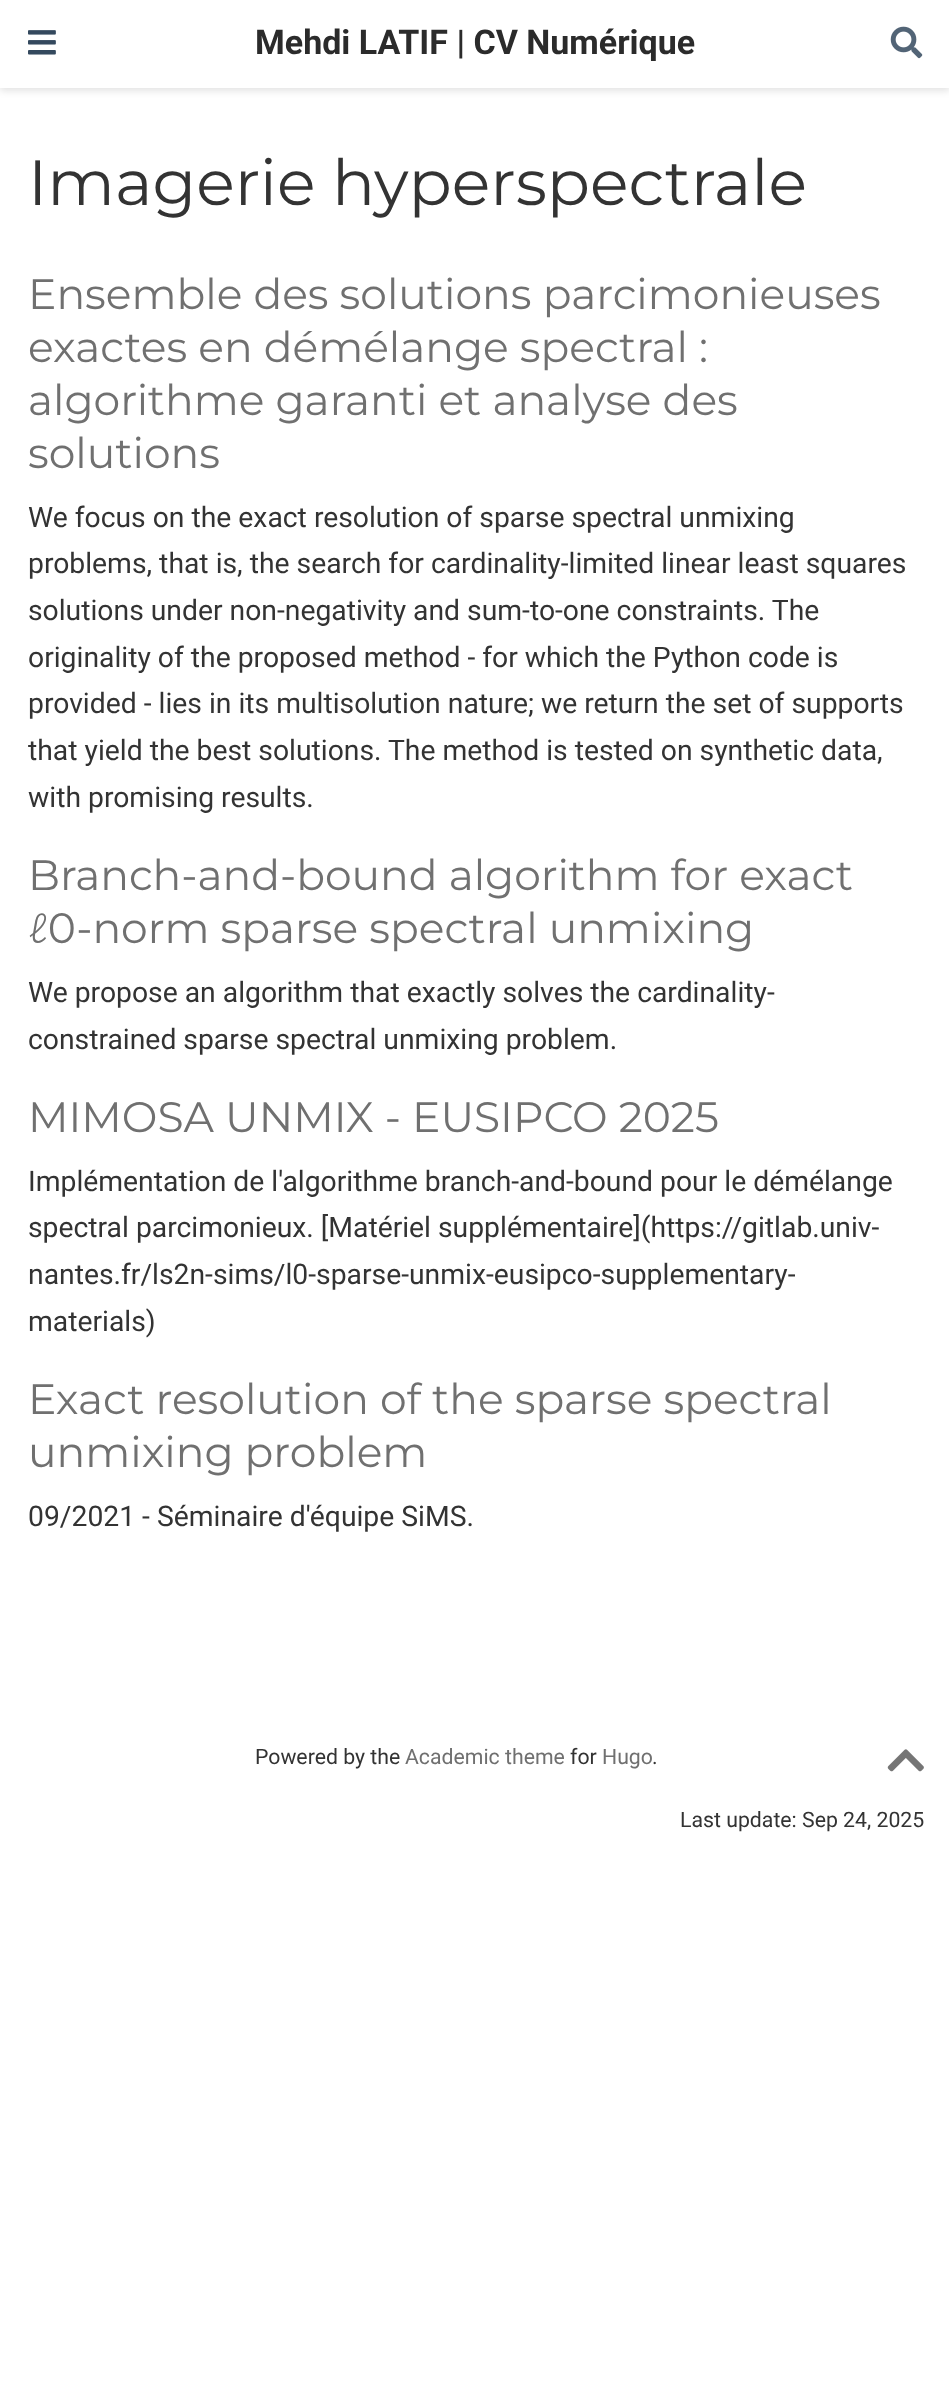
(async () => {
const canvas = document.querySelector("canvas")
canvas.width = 949
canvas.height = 2391
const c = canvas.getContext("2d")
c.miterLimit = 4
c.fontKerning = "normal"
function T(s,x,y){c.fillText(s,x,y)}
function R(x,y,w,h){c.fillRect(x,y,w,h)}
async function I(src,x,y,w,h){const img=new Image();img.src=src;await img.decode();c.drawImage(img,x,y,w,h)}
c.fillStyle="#fff"
R(0,0,949,2391)
c.fillStyle="#0000001c"
c.filter="blur(3.5px)"
c.beginPath()
c.rect(0,4,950,87)
c.fill()
c.filter="none"
c.fillStyle="#fff"
R(0,0,949,88)
await I("1.png",28,30,28,25)
c.font="bold 34px Roboto"
c.fillStyle="#2b2b2b"
T("Mehdi LATIF | CV Numérique",255,54)
await I("2.png",890,26,33,33)
c.font="63.75px Montserrat"
c.fillStyle="#333"
T("Imagerie hyperspectrale",28,205)
c.font="42.45px Montserrat"
c.fillStyle="#707070"
T("Ensemble des solutions parcimonieuses",28,309)
T("exactes en démélange spectral :",28,362)
T("algorithme garanti et analyse des",28,415)
T("solutions",28,468)
c.font="28.3px Roboto"
c.fillStyle="#333"
T("We focus on the exact resolution of sparse spectral unmixing",28,527)
T("problems, that is, the search for cardinality-limited linear least squares",28,573)
T("solutions under non-negativity and sum-to-one constraints. The",28,620)
T("originality of the proposed method - for which the Python code is",28,667)
T("provided - lies in its multisolution nature; we return the set of supports",28,713)
T("that yield the best solutions. The method is tested on synthetic data,",28,760)
T("with promising results.",28,807)
c.font="42.45px Montserrat"
c.fillStyle="#707070"
T("Branch-and-bound algorithm for exact",28,890)
T("ℓ0-norm sparse spectral unmixing",28,943)
c.font="28.3px Roboto"
c.fillStyle="#333"
T("We propose an algorithm that exactly solves the cardinality-",28,1002)
T("constrained sparse spectral unmixing problem.",28,1049)
c.font="42.45px Montserrat"
c.fillStyle="#707070"
T("MIMOSA UNMIX - EUSIPCO 2025",28,1132)
c.font="28.3px Roboto"
c.fillStyle="#333"
T("Implémentation de l'algorithme branch-and-bound pour le démélange",28,1191)
T("spectral parcimonieux. [Matériel supplémentaire](https://gitlab.univ-",28,1237)
T("nantes.fr/ls2n-sims/l0-sparse-unmix-eusipco-supplementary-",28,1284)
T("materials)",28,1331)
c.font="42.45px Montserrat"
c.fillStyle="#707070"
T("Exact resolution of the sparse spectral",28,1414)
T("unmixing problem",28,1467)
c.font="28.3px Roboto"
c.fillStyle="#333"
T("09/2021 - Séminaire d'équipe SiMS.",28,1526)
c.font="21.25px Roboto"
T("Powered by the",255,1764)
c.fillStyle="#707070"
T("Academic theme",405,1764)
c.fillStyle="#333"
T("for",570,1764)
c.fillStyle="#707070"
T("Hugo",602,1764)
c.fillStyle="#333"
T(".",652,1764)
await I("3.png",887,1749,37,23)
T("Last update: Sep 24, 2025",680,1827)
})()
